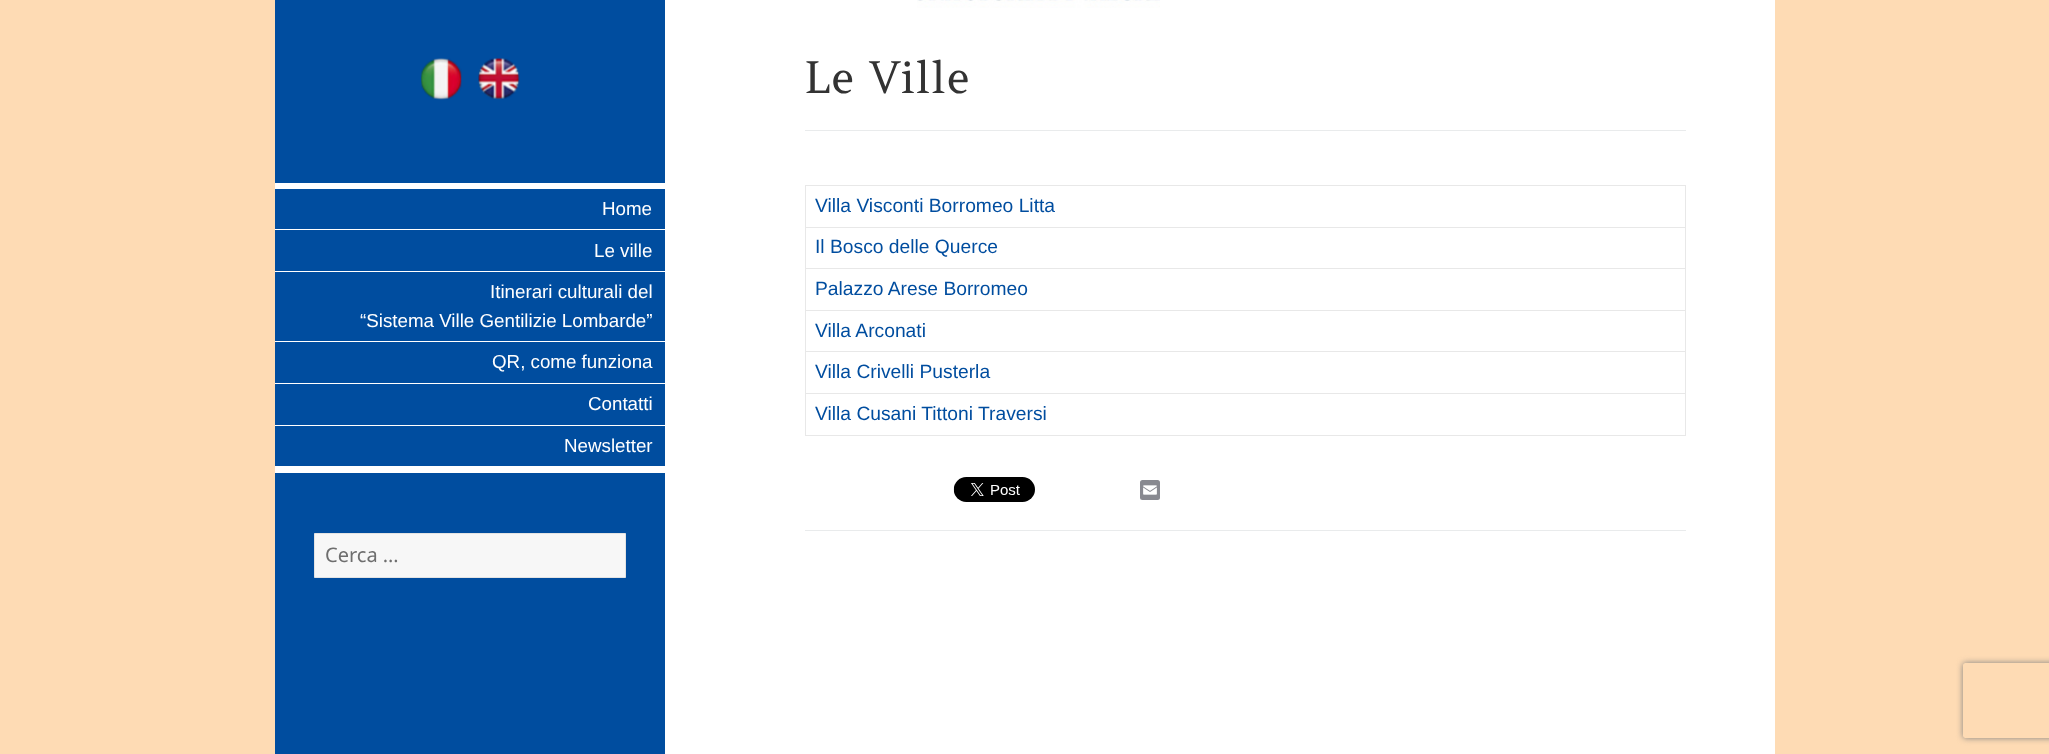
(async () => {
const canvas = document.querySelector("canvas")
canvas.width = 2049
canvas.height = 754
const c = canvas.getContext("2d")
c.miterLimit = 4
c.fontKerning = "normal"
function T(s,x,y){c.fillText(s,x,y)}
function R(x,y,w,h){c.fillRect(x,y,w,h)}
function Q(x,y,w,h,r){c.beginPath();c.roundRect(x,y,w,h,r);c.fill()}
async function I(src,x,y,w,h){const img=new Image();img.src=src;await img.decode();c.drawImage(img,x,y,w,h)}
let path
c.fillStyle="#fedbb4"
R(0,0,2049,754)
c.fillStyle="#fff"
R(665,0,1110,754)
c.fillStyle="#004d9f"
R(275,0,390,754)
await I("1.png",421,58,41,42)
await I("2.png",478,58,42,42)
c.fillStyle="#fff"
R(275,466,390,7)
R(275,183,390,6)
c.font="18.75px Liberation Sans"
T("Home",602,215)
R(275,229,390,1)
T("Le ville",594,257)
R(275,271,390,1)
T("Itinerari culturali del",490,298)
T("“Sistema Ville Gentilizie Lombarde”",360,327)
R(275,341,390,1)
T("QR, come funziona",492,368)
R(275,383,390,1)
T("Contatti",588,410)
R(275,425,390,1)
T("Newsletter",564,452)
c.fillStyle="#f7f7f7"
c.beginPath()
c.rect(314.5,533.5,311,44)
c.fill()
c.strokeStyle="#e3e3e3"
c.stroke()
c.font="20px Noto Sans"
c.fillStyle="#6e6e6e"
T("Cerca …",325,562)
await I("3.png",917,0,243,8)
c.fillStyle="#e9ebec"
R(805,530,881,1)
c.letterSpacing="0.5px"
c.font="44px Amethysta"
c.fillStyle="#333"
T("Le Ville",804,93)
c.fillStyle="#e9ebec"
R(805,130,881,1)
c.strokeStyle="#e8e8e8"
c.strokeRect(805.5,185.5,880,42)
c.letterSpacing="0px"
c.font="19.25px Liberation Sans"
c.fillStyle="#004d9f"
T("Villa Visconti Borromeo Litta",815,212)
c.fillStyle="#e8e8e8"
R(1685,228,1,208)
R(805,268,881,1)
R(805,228,1,41)
c.fillStyle="#004d9f"
T("Il Bosco delle Querce",815,253)
c.fillStyle="#e8e8e8"
R(805,310,881,1)
R(805,269,1,42)
c.fillStyle="#004d9f"
T("Palazzo Arese Borromeo",815,295)
c.fillStyle="#e8e8e8"
R(805,351,881,1)
R(805,311,1,42)
c.fillStyle="#004d9f"
T("Villa Arconati",815,337)
c.fillStyle="#e8e8e8"
R(805,393,881,1)
R(805,353,1,41)
c.fillStyle="#004d9f"
T("Villa Crivelli Pusterla",815,378)
c.fillStyle="#e8e8e8"
R(805,435,881,1)
R(805,394,1,42)
c.fillStyle="#004d9f"
T("Villa Cusani Tittoni Traversi",815,420)
await I("4.png",953,477,82,25)
c.fillStyle="#888990"
Q(1140,480,20,20,2.5)
await I("5.png",1143,485,14,10)
c.save()
path = new Path2D("M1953 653h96v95h-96zm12.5 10h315c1.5 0 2.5 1 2.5 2.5v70c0 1.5-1 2.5-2.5 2.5h-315c-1.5 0-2.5-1-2.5-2.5v-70c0-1.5 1-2.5 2.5-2.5z")
c.clip(path,"evenodd")
c.fillStyle="#808080"
c.filter="blur(3px)"
c.beginPath()
c.roundRect(1963,663,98,75,2.5)
c.fill()
c.filter="none"
c.restore()
})()
